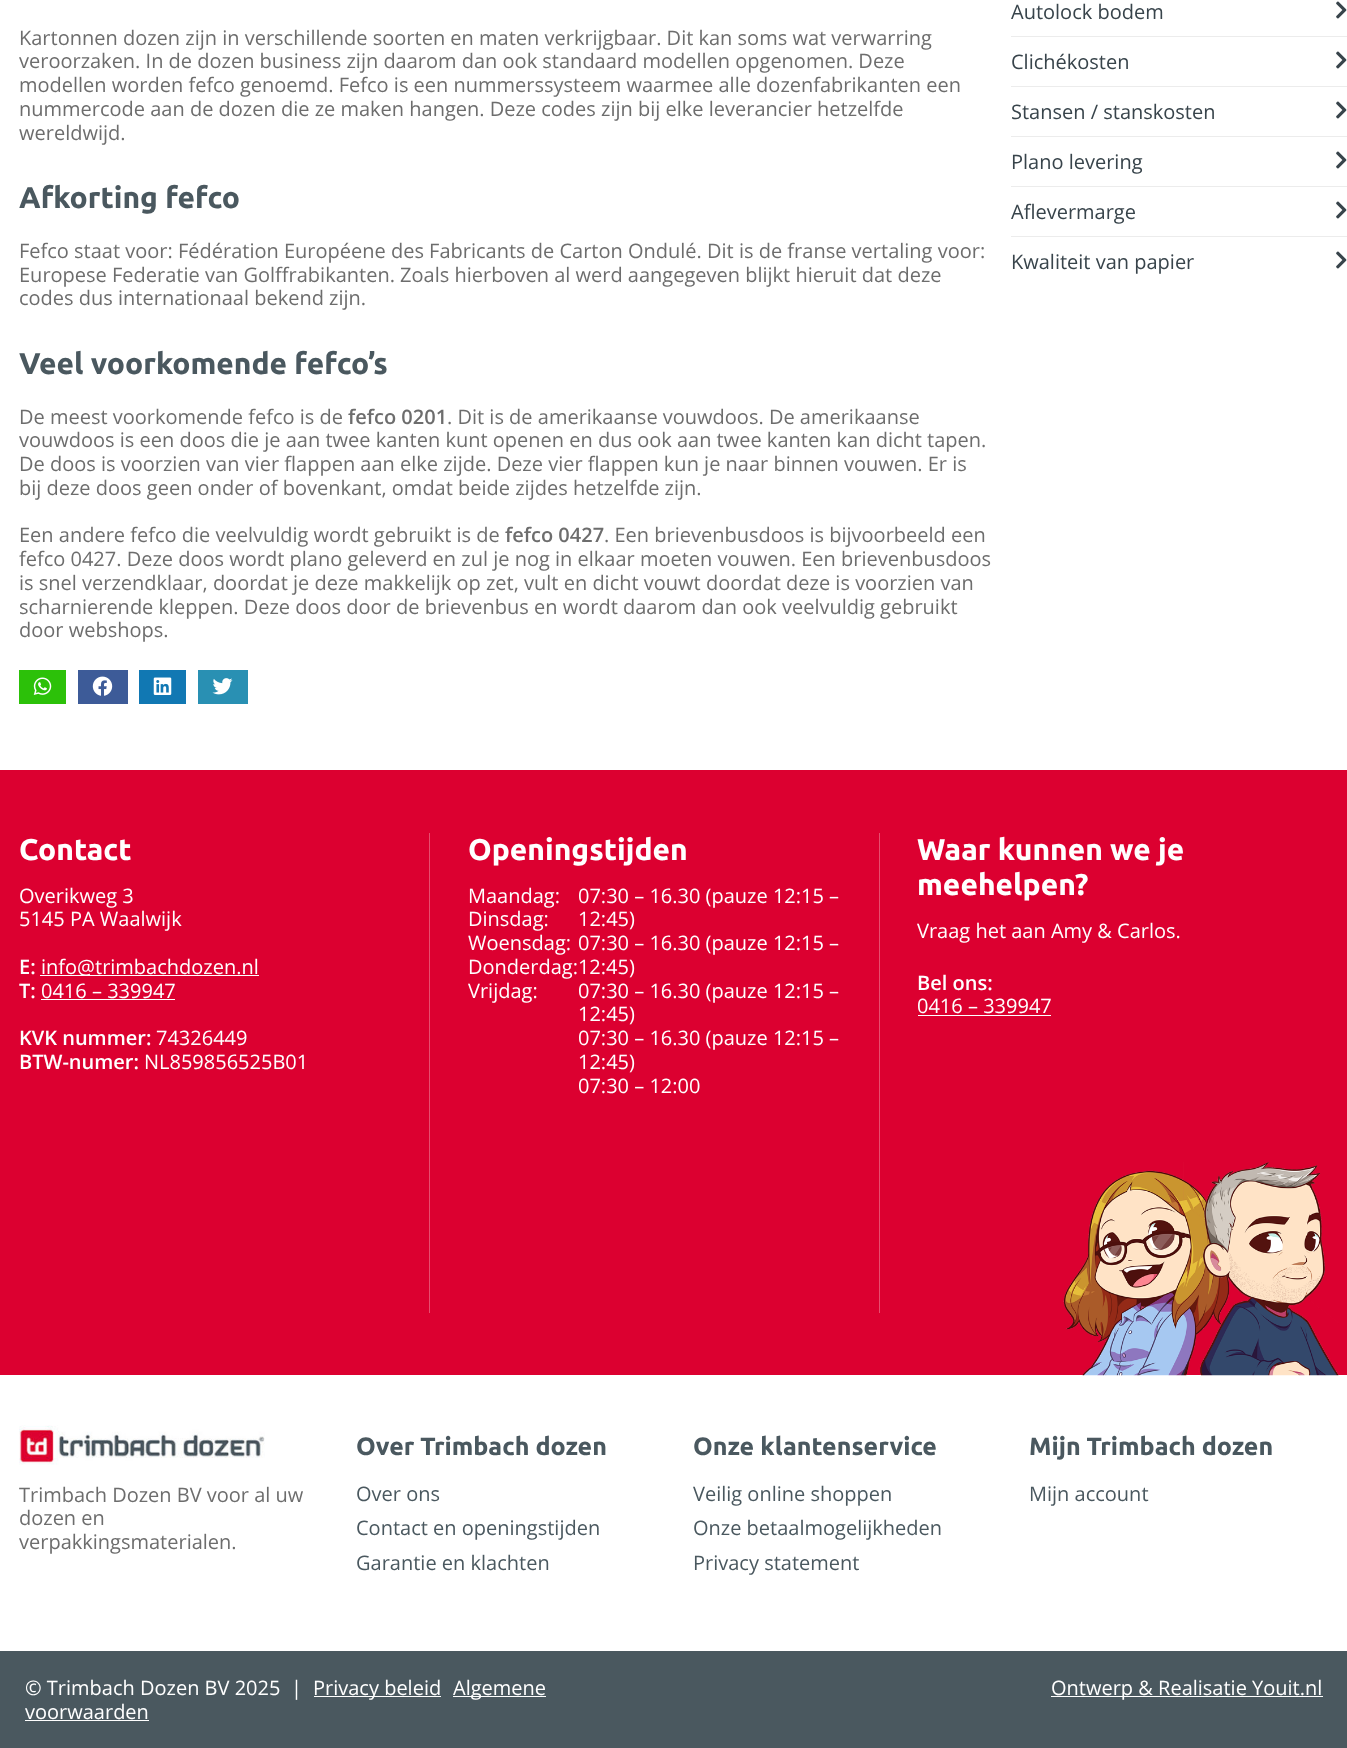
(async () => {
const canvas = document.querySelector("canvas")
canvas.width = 1347
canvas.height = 1748
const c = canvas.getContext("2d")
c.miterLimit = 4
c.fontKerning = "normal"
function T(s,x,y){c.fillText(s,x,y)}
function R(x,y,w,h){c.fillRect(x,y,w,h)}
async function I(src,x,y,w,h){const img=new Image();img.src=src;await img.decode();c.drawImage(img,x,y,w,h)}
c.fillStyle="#fff"
R(0,0,1347,1748)
c.font="20px Open Sans"
c.fillStyle="#6d6d6d"
T("Kartonnen dozen zijn in verschillende soorten en maten verkrijgbaar. Dit kan soms wat verwarring",19,45)
T("veroorzaken. In de dozen business zijn daarom dan ook standaard modellen opgenomen. Deze",19,68)
T("modellen worden fefco genoemd. Fefco is een nummerssysteem waarmee alle dozenfabrikanten een",19,92)
T("nummercode aan de dozen die ze maken hangen. Deze codes zijn bij elke leverancier hetzelfde",19,116)
T("wereldwijd.",19,140)
c.font="bold 30px Ubuntu"
c.fillStyle="#4a585f"
T("Afkorting fefco",19,208)
c.font="20px Open Sans"
c.fillStyle="#6d6d6d"
T("Fefco staat voor: Fédération Européene des Fabricants de Carton Ondulé. Dit is de franse vertaling voor:",19,258)
T("Europese Federatie van Golffrabikanten. Zoals hierboven al werd aangegeven blijkt hieruit dat deze",19,282)
T("codes dus internationaal bekend zijn.",19,305)
c.font="bold 30px Ubuntu"
c.fillStyle="#4a585f"
T("Veel voorkomende fefco’s",19,374)
c.font="20px Open Sans"
c.fillStyle="#6d6d6d"
T("De meest voorkomende fefco is de",19,424)
c.font="600 20px Open Sans"
T("fefco 0201",348,424)
c.font="20px Open Sans"
T(". Dit is de amerikaanse vouwdoos. De amerikaanse",447,424)
T("vouwdoos is een doos die je aan twee kanten kunt openen en dus ook aan twee kanten kan dicht tapen.",19,447)
T("De doos is voorzien van vier flappen aan elke zijde. Deze vier flappen kun je naar binnen vouwen. Er is",19,471)
T("bij deze doos geen onder of bovenkant, omdat beide zijdes hetzelfde zijn.",19,495)
T("Een andere fefco die veelvuldig wordt gebruikt is de",19,542)
c.font="600 20px Open Sans"
T("fefco 0427",505,542)
c.font="20px Open Sans"
T(". Een brievenbusdoos is bijvoorbeeld een",604,542)
T("fefco 0427. Deze doos wordt plano geleverd en zul je nog in elkaar moeten vouwen. Een brievenbusdoos",19,566)
T("is snel verzendklaar, doordat je deze makkelijk op zet, vult en dicht vouwt doordat deze is voorzien van",19,590)
T("scharnierende kleppen. Deze doos door de brievenbus en wordt daarom dan ook veelvuldig gebruikt",19,614)
T("door webshops.",19,637)
c.fillStyle="#2cc109"
R(19,670,47,34)
await I("1.png",33,677,19,18)
c.fillStyle="#3d5b98"
R(78,670,50,34)
await I("2.png",92,676,21,20)
c.fillStyle="#1178b3"
R(139,670,47,34)
await I("3.png",153,677,19,18)
c.fillStyle="#2990b3"
R(198,670,50,34)
await I("4.png",212,678,21,17)
c.fillStyle="#ececec"
R(1011,36,336,1)
c.fillStyle="#38444b"
T("Autolock bodem",1011,19)
await I("5.png",1336,1,11,18)
c.fillStyle="#ececec"
R(1011,86,336,1)
c.fillStyle="#38444b"
T("Clichékosten",1011,69)
await I("5.png",1336,51,11,18)
c.fillStyle="#ececec"
R(1011,136,336,1)
c.fillStyle="#38444b"
T("Stansen / stanskosten",1011,119)
await I("5.png",1336,101,11,18)
c.fillStyle="#ececec"
R(1011,186,336,1)
c.fillStyle="#38444b"
T("Plano levering",1011,169)
await I("5.png",1336,151,11,18)
c.fillStyle="#ececec"
R(1011,236,336,1)
c.fillStyle="#38444b"
T("Aflevermarge",1011,219)
await I("5.png",1336,201,11,18)
T("Kwaliteit van papier",1011,269)
await I("5.png",1336,251,11,18)
c.fillStyle="#dc0030"
R(0,770,1347,605)
c.fillStyle="#e74d6e"
R(429,833,1,480)
c.font="bold 30px Ubuntu"
c.fillStyle="#fff"
T("Contact",19,860)
c.font="20px Open Sans"
T("Overikweg 3",19,903)
T("5145 PA Waalwijk",19,926)
c.font="600 20px Open Sans"
T("E:",19,974)
R(40,975,219,1)
c.font="20px Open Sans"
T("info@trimbachdozen.nl",41,974)
c.font="600 20px Open Sans"
T("T:",19,998)
c.font="20px Open Sans"
T("0416 – 339947",41,998)
R(41,999,134,1)
c.font="600 20px Open Sans"
T("KVK nummer:",19,1045)
c.font="20px Open Sans"
T("74326449",156,1045)
c.font="600 20px Open Sans"
T("BTW-numer:",19,1069)
c.font="20px Open Sans"
T("NL859856525B01",144,1069)
c.fillStyle="#e74d6e"
R(879,833,1,480)
c.font="bold 30px Ubuntu"
c.fillStyle="#fff"
T("Openingstijden",468,860)
c.font="20px Open Sans"
T("Maandag:",468,903)
T("Dinsdag:",468,926)
T("Woensdag:",468,950)
T("Donderdag:12:45)",468,974)
T("Vrijdag:",468,998)
T("07:30 – 16.30 (pauze 12:15 –",578,903)
T("12:45)",578,926)
T("07:30 – 16.30 (pauze 12:15 –",578,950)
T("07:30 – 16.30 (pauze 12:15 –",578,998)
T("12:45)",578,1021)
T("07:30 – 16.30 (pauze 12:15 –",578,1045)
T("12:45)",578,1069)
T("07:30 – 12:00",578,1093)
c.font="bold 30px Ubuntu"
T("Waar kunnen we je",917,860)
T("meehelpen?",917,895)
c.font="20px Open Sans"
T("Vraag het aan Amy & Carlos.",917,938)
c.font="600 20px Open Sans"
T("Bel ons:",917,990)
c.font="20px Open Sans"
T("0416 – 339947",917,1013)
R(918,1015,133,1)
await I("6.png",1063,1162,276,214)
c.font="bold 25px Ubuntu"
c.fillStyle="#4a585f"
T("Over Trimbach dozen",356,1455)
c.font="20px Open Sans"
T("Over ons",356,1501)
T("Contact en openingstijden",356,1535)
T("Garantie en klachten",356,1570)
c.font="bold 25px Ubuntu"
T("Onze klantenservice",693,1455)
c.font="20px Open Sans"
T("Veilig online shoppen",693,1501)
T("Onze betaalmogelijkheden",693,1535)
T("Privacy statement",693,1570)
c.font="bold 25px Ubuntu"
T("Mijn Trimbach dozen",1029,1455)
c.font="20px Open Sans"
T("Mijn account",1029,1501)
await I("7.png",19,1425,246,40)
c.fillStyle="#6d6d6d"
T("Trimbach Dozen BV voor al uw",19,1502)
T("dozen en",19,1525)
T("verpakkingsmaterialen.",19,1549)
c.fillStyle="#4a585f"
R(0,1651,1347,97)
c.fillStyle="#fff"
T("© Trimbach Dozen BV 2025",25,1695)
T("|",291,1695)
R(314,1696,127,1)
T("Privacy beleid",313,1695)
R(453,1696,93,1)
T("Algemene",453,1695)
T("voorwaarden",25,1719)
R(25,1720,124,1)
R(1051,1696,272,1)
T("Ontwerp & Realisatie Youit.nl",1051,1695)
})()
